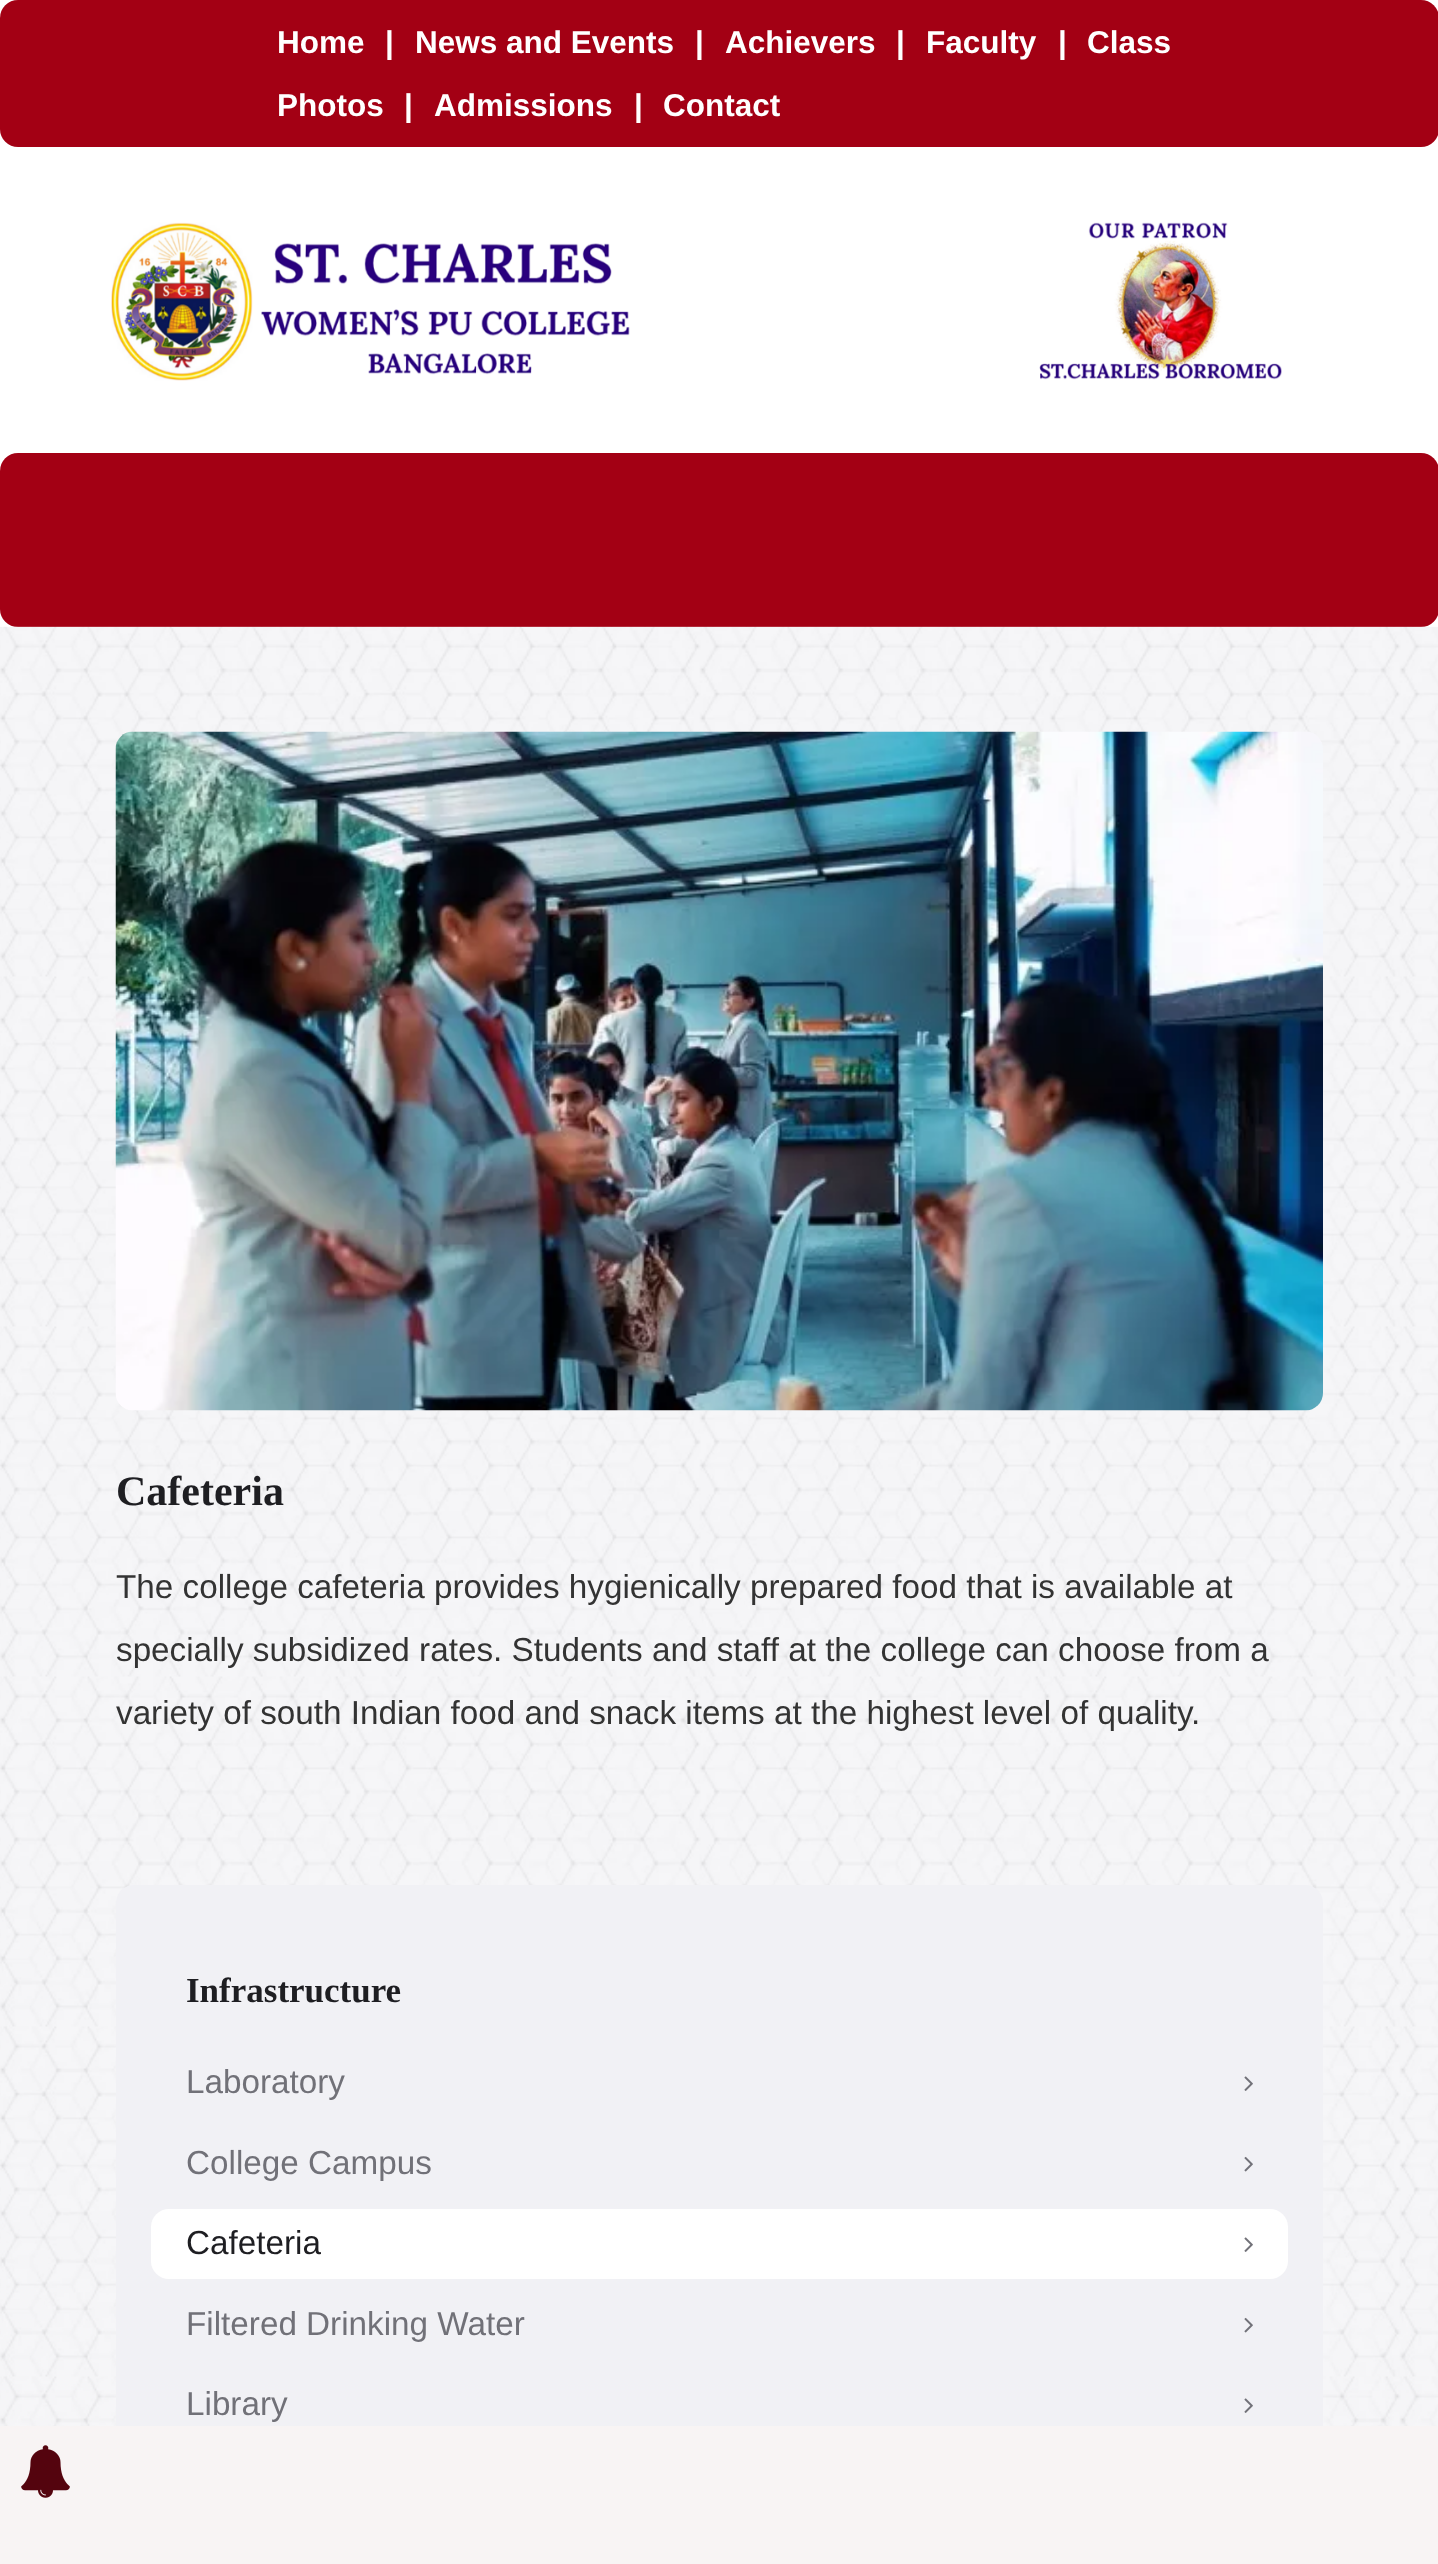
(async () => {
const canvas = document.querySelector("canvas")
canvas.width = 1438
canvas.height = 2564
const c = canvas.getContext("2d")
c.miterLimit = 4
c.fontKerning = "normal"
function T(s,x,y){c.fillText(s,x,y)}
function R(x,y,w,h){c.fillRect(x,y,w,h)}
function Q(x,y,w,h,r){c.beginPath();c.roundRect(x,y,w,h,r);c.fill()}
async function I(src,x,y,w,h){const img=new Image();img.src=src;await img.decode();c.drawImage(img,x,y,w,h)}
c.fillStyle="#fff"
R(0,0,1438,2564)
c.fillStyle="#a30014"
Q(0,0,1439,147,18)
c.font="bold 31.5px Liberation Sans"
c.fillStyle="#fff"
T("Home",277,53)
T("|",385,53)
T("News and Events",415,53)
T("|",695,53)
T("Achievers",725,53)
T("|",896,53)
T("Faculty",926,53)
T("|",1058,53)
T("Class",1087,53)
T("Photos",277,116)
T("|",404,116)
T("Admissions",434,116)
T("|",634,116)
T("Contact",663,116)
await I("1.png",111,222,1171,159)
c.fillStyle="#a30014"
Q(0,453,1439,174,18)
c.fillStyle="#f1f1f5"
R(0,627,1438,1799)
await I("2.png",0,626,1438,1800)
await I("3.png",115,731,1208,680)
c.font="bold 42px Liberation Serif"
c.fillStyle="#1e1e22"
T("Cafeteria",116,1505)
c.font="33.25px Liberation Sans"
c.fillStyle="#333"
T("The college cafeteria provides hygienically prepared food that is available at",116,1598)
T("specially subsidized rates. Students and staff at the college can choose from a",116,1661)
T("variety of south Indian food and snack items at the highest level of quality.",116,1724)
c.fillStyle="#f1f1f5"
Q(116,1885,1207,625,18)
c.font="bold 35px Liberation Serif"
c.fillStyle="#1e1e22"
T("Infrastructure",186,2002)
c.font="33.25px Liberation Sans"
c.fillStyle="#717178"
T("Laboratory",186,2093)
await I("4.png",1244,2076,9,15)
T("College Campus",186,2174)
await I("5.png",1244,2156,9,16)
c.fillStyle="#fff"
Q(151,2209,1137,70,18)
c.fillStyle="#1e1e22"
T("Cafeteria",186,2254)
await I("6.png",1244,2237,9,15)
c.fillStyle="#717178"
T("Filtered Drinking Water",186,2335)
await I("7.png",1244,2317,9,16)
T("Library",186,2415)
await I("8.png",1244,2398,9,15)
c.fillStyle="#f8f4f4"
R(0,2426,1438,138)
await I("9.png",21,2445,49,53)
})()
